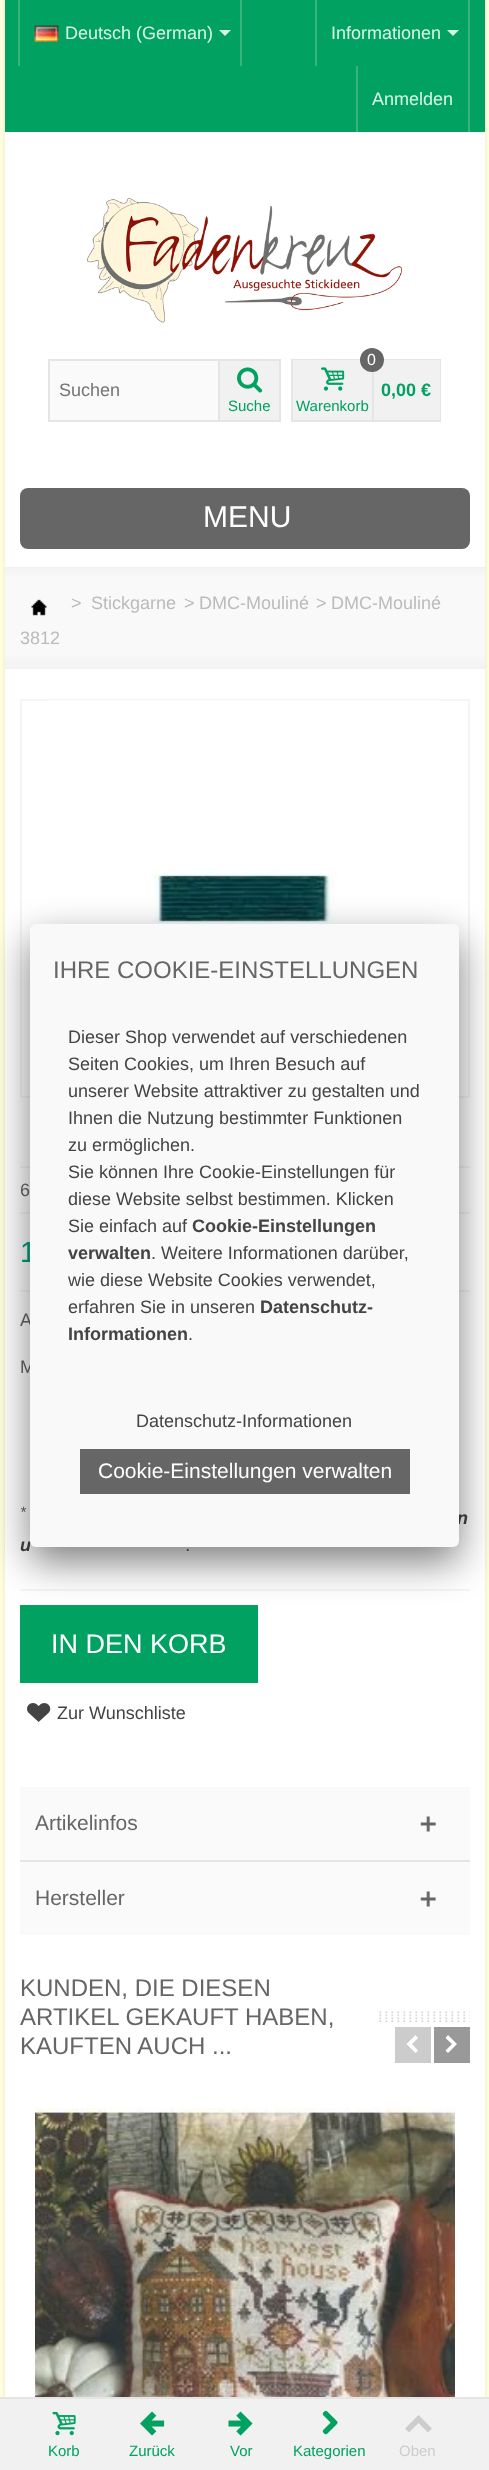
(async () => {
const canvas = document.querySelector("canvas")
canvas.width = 489
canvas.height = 2470
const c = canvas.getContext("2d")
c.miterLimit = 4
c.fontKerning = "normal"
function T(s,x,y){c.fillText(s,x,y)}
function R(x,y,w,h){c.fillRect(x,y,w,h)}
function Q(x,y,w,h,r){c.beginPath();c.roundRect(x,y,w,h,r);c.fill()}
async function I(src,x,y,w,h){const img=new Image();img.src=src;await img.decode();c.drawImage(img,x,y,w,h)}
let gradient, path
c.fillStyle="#ffffe0"
R(0,0,489,2470)
c.fillStyle="#0000001a"
c.filter="blur(2px)"
c.beginPath()
c.rect(5,0,480,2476)
c.fill()
c.filter="none"
c.fillStyle="#fff"
R(5,132,480,2265)
c.fillStyle="#00a161"
R(5,0,480,132)
c.fillStyle="#3ab47b"
R(240,0,2,66)
R(18,0,2,66)
await I("1.png",34,25,25,17)
c.font="18px Liberation Sans"
c.fillStyle="#d8f6e6"
T("Deutsch (German)",65,39)
path = new Path2D("M219 30h12l-6 6z")
c.fill(path)
c.fillStyle="#3ab47b"
R(315,0,2,66)
c.fillStyle="#d8f6e6"
T("Informationen",331,39)
path = new Path2D("M447 30h12l-6 6z")
c.fill(path)
c.fillStyle="#3ab47b"
R(468,0,2,132)
R(356,66,2,66)
c.fillStyle="#d8f6e6"
T("Anmelden",372,105)
await I("2.png",87,198,315,125)
c.fillStyle="#fafafa"
R(50,361,168,59)
c.fillStyle="#e5e5e5"
R(48,359,170,2)
R(48,420,170,2)
R(48,359,2,63)
c.fillStyle="#757575"
T("Suchen",59,396)
c.fillStyle="#f1f1f1"
c.beginPath()
c.rect(219,360,61,61)
c.fill()
c.strokeStyle="#e5e5e5"
c.lineWidth=2
c.stroke()
await I("3.png",237,367,26,26)
c.font="15px Liberation Sans"
c.fillStyle="#00a161"
T("Suche",228,411)
c.strokeRect(292,360,148,61)
c.fillStyle="#f1f1f1"
R(293,360,79,60)
R(374,360,66,60)
c.fillStyle="#e5e5e5"
R(372,371,2,49)
c.fillStyle="#666"
c.beginPath()
c.arc(372,360,12,0,7)
c.fill()
c.font="16px Liberation Sans"
c.fillStyle="#fff"
T("0",367,365)
await I("4.png",321,367,24,24)
c.font="15px Liberation Sans"
c.fillStyle="#00a161"
T("Warenkorb",296,411)
c.font="bold 18px Liberation Sans"
T("0,00 €",381,396)
c.fillStyle="#666"
Q(20,488,450,61,8)
c.font="30px Liberation Sans"
c.fillStyle="#fff"
T("MENU",203,527)
gradient = c.createLinearGradient(245,567,245,669)
gradient.addColorStop(0,"#f2f2f2")
gradient.addColorStop(.1,"#f9f9f9")
gradient.addColorStop(.85,"#f9f9f9")
gradient.addColorStop(1,"#f2f2f2")
c.fillStyle = gradient
R(5,567,480,102)
await I("5.png",31,599,16,17)
c.font="18px Liberation Sans"
c.fillStyle="#bbb"
T(">",71,609)
T("Stickgarne",91,609)
T(">",184,609)
T("DMC-Mouliné",199,609)
T(">",316,609)
T("DMC-Mouliné",331,609)
T("3812",20,644)
c.strokeStyle="#f5f5f5"
c.strokeRect(21,700,448,397)
await I("6.png",47,700,395,224)
c.fillStyle="#f5f5f5"
R(20,1166,450,2)
R(20,1212,450,2)
c.fillStyle="#666"
T("6",20,1196)
c.font="29px Liberation Sans"
c.fillStyle="#00a178"
T("1",20,1262)
c.fillStyle="#f5f5f5"
R(20,1290,450,2)
c.font="18px Liberation Sans"
c.fillStyle="#666"
T("A",20,1326)
T("M",20,1373)
c.font="italic 15px Liberation Sans"
T("*",20,1517)
c.font="italic bold 18px Liberation Sans"
c.fillStyle="#444"
T("n",457,1524)
T("u",20,1551)
c.font="italic 18px Liberation Sans"
c.fillStyle="#666"
T(".",186,1551)
c.fillStyle="#f5f5f5"
R(20,1589,450,2)
c.fillStyle="#00a161"
R(20,1605,238,78)
c.font="27px Liberation Sans"
c.fillStyle="#fff"
T("IN DEN KORB",51,1653)
await I("7.png",27,1703,24,19)
c.font="18px Liberation Sans"
c.fillStyle="#444"
T("Zur Wunschliste",57,1719)
c.fillStyle="#fafafa"
R(20,1787,450,148)
c.fillStyle="#e5e5e5"
R(20,1860,450,2)
c.font="21px Liberation Sans"
c.fillStyle="#666"
T("Artikelinfos",35,1830)
await I("8.png",420,1816,16,16)
T("Hersteller",35,1905)
await I("8.png",420,1891,16,16)
await I("9.png",19,2011,451,11)
c.fillStyle="#fff"
R(20,2011,356,11)
c.font="24px Liberation Sans"
c.fillStyle="#666"
T("KUNDEN, DIE DIESEN",20,1996)
T("ARTIKEL GEKAUFT HABEN,",20,2025)
T("KAUFTEN AUCH ...",20,2054)
c.fillStyle="#ccc"
R(395,2027,36,36)
c.fillStyle="#fff"
path = new Path2D("M406.5 2044l9-9l2.5 3l-6 6l6 6.5l-2.5 2.5z")
c.fill(path)
c.fillStyle="#999"
R(434,2027,36,36)
c.fillStyle="#fff"
path = new Path2D("M445.5 2050.5l6.5-6.5l-6.5-6l2.5-3l9 9l-9 9z")
c.fill(path)
await I("10.png",35,2108,420,289)
c.fillStyle="#00000080"
c.filter="blur(19px)"
c.beginPath()
c.roundRect(30,939,429,623,6)
c.fill()
c.filter="none"
c.fillStyle="#f9f9f9"
Q(30,924,429,623,6)
c.fillStyle="#666"
T("IHRE COOKIE-EINSTELLUNGEN",53,978)
c.font="18px Liberation Sans"
c.fillStyle="#444"
T("Dieser Shop verwendet auf verschiedenen",68,1043)
T("Seiten Cookies, um Ihren Besuch auf",68,1070)
T("unserer Website attraktiver zu gestalten und",68,1097)
T("Ihnen die Nutzung bestimmter Funktionen",68,1124)
T("zu ermöglichen.",68,1151)
T("Sie können Ihre Cookie-Einstellungen für",68,1178)
T("diese Website selbst bestimmen. Klicken",68,1205)
T("Sie einfach auf",68,1232)
c.font="bold 18px Liberation Sans"
T("Cookie-Einstellungen",192,1232)
T("verwalten",68,1259)
c.font="18px Liberation Sans"
T(". Weitere Informationen darüber,",151,1259)
T("wie diese Website Cookies verwendet,",68,1286)
T("erfahren Sie in unseren",68,1313)
c.font="bold 18px Liberation Sans"
T("Datenschutz-",260,1313)
T("Informationen",68,1340)
c.font="18px Liberation Sans"
T(".",188,1340)
T("Datenschutz-Informationen",136,1427)
c.fillStyle="#666"
R(80,1449,330,45)
c.font="21px Liberation Sans"
c.fillStyle="#fff"
T("Cookie-Einstellungen verwalten",98,1478)
c.fillStyle="#f1f1f1"
R(0,2399,489,71)
c.fillStyle="#e5e5e5"
R(0,2397,489,2)
await I("11.png",52,2411,24,25)
c.font="15px Liberation Sans"
c.fillStyle="#00a161"
T("Korb",48,2456)
await I("12.png",140,2411,25,25)
T("Zurück",129,2456)
await I("13.png",228,2411,25,25)
T("Vor",230,2456)
await I("14.png",322,2410,16,25)
T("Kategorien",293,2456)
c.fillStyle="#ccc"
path = new Path2D("M405 2428.5l13.5-13.5l13.5 13.5l-4 4l-9.5-9.5l-9.5 9.5z")
c.fill(path)
T("Oben",399,2456)
})()
